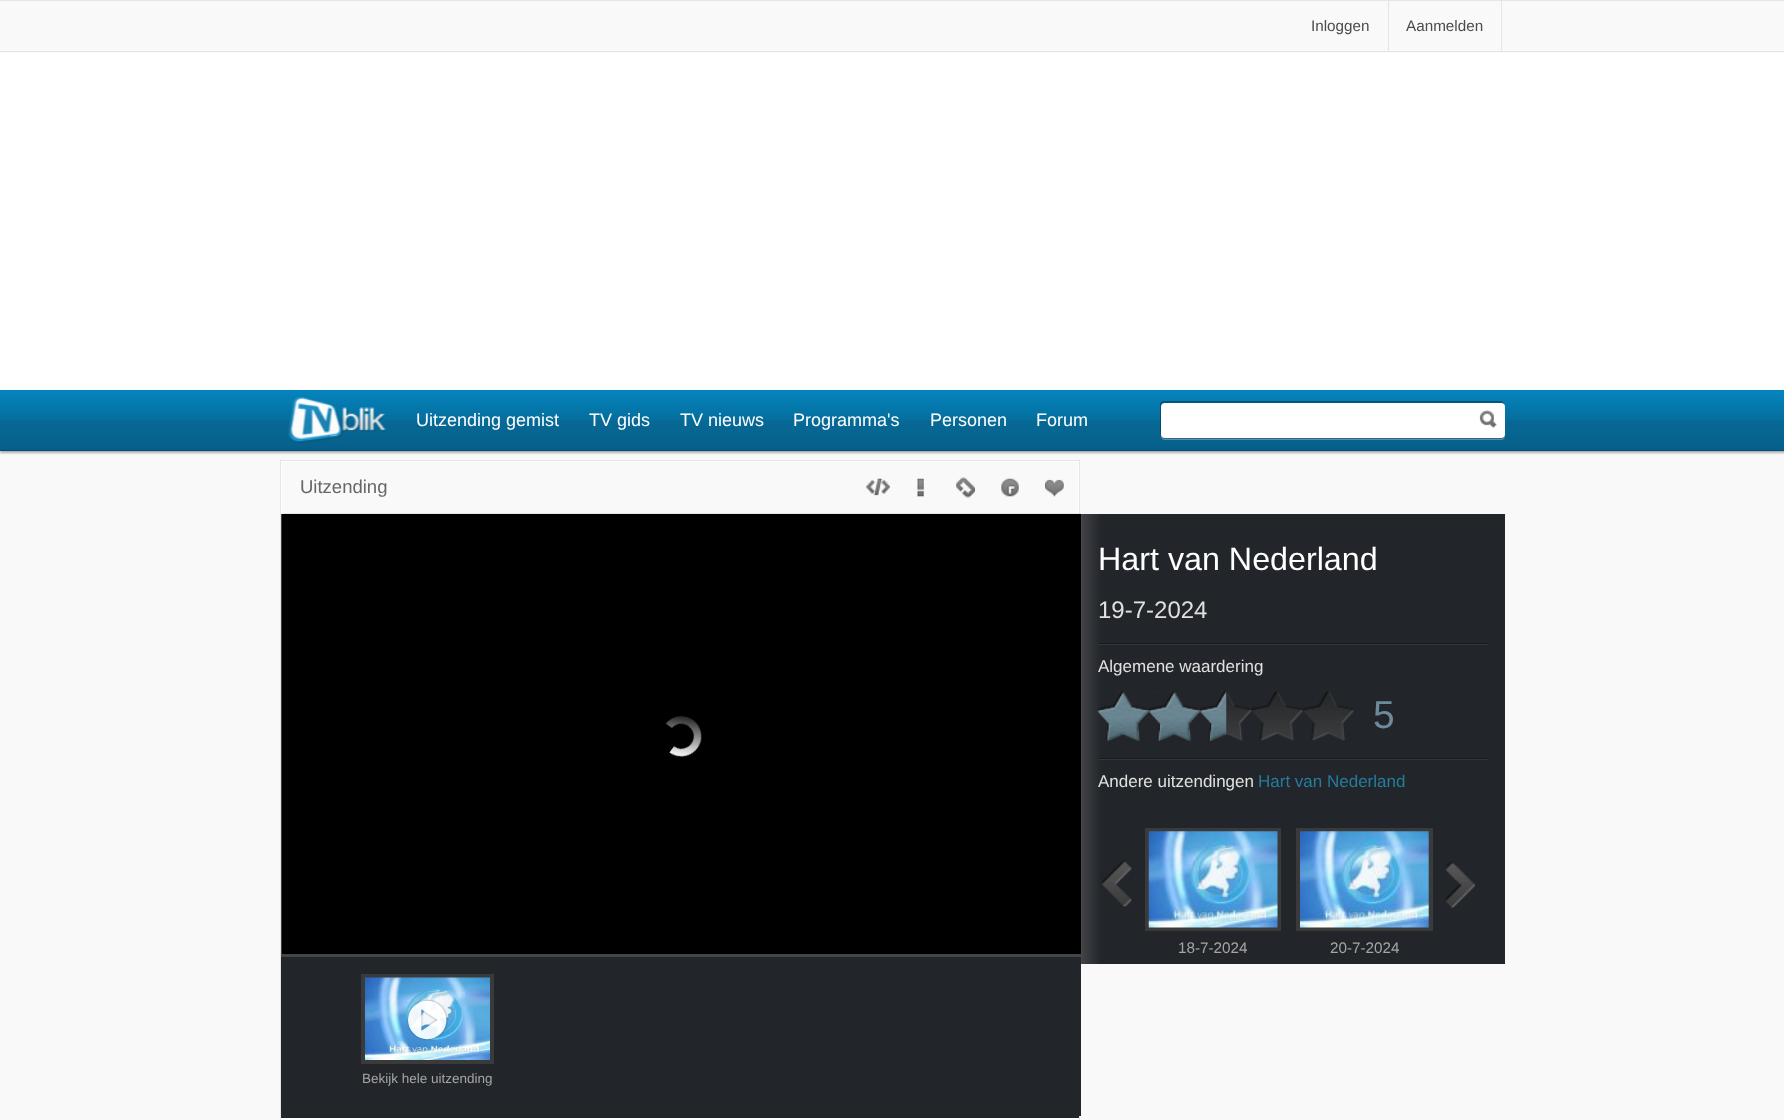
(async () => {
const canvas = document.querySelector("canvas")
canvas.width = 1784
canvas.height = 1120
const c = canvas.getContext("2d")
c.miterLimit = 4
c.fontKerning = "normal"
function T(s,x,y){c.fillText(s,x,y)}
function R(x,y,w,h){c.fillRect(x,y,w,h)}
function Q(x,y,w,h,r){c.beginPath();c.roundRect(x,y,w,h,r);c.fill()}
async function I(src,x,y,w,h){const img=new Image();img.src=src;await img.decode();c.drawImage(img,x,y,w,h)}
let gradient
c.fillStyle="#f9f9f9"
R(0,0,1784,1120)
c.fillStyle="#fff"
R(0,53,1784,12)
c.fillStyle="#e5e5e5"
R(0,0,1784,1)
R(0,51,1784,1)
R(1388,1,1,50)
c.font="15.25px Liberation Sans"
c.fillStyle="#4c4c4c"
T("Inloggen",1311,31)
c.fillStyle="#e5e5e5"
R(1501,1,1,50)
c.fillStyle="#4c4c4c"
T("Aanmelden",1406,31)
c.fillStyle="#0000004d"
c.filter="blur(1px)"
c.beginPath()
c.rect(0,391,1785,62)
c.fill()
c.filter="none"
c.fillStyle="#fff"
R(0,65,1784,325)
gradient = c.createLinearGradient(893,390,893,450)
gradient.addColorStop(0,"#0485be")
gradient.addColorStop(.5,"#056e9d")
gradient.addColorStop(.5,"#076996")
gradient.addColorStop(1,"#065f89")
c.fillStyle = gradient
R(0,390,1784,60)
c.fillStyle="#025071"
R(0,450,1784,1)
await I("1.png",288,397,98,46)
c.font="18px Liberation Sans"
c.fillStyle="#fff"
T("Uitzending gemist",416,426)
T("TV gids",589,426)
T("TV nieuws",680,426)
T("Programma's",793,426)
T("Personen",930,426)
T("Forum",1036,426)
c.fillStyle="#ffffff4d"
c.filter="blur(0.5px)"
c.beginPath()
c.roundRect(1161,405,344,35,4)
c.fill()
c.filter="none"
c.fillStyle="#0000004d"
c.filter="blur(0.5px)"
c.beginPath()
c.roundRect(1160,401,344,35,4)
c.fill()
c.filter="none"
c.filter="blur(0.5px)"
c.beginPath()
c.roundRect(1161,404,344,35,4)
c.fill()
c.filter="none"
c.fillStyle="#fff"
Q(1161,403,344,35,4)
await I("2.png",1479,410,18,18)
R(281,1118,798,2)
c.strokeStyle="#e5e5e5"
c.strokeRect(280.5,460.5,799,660)
R(281,461,798,1)
c.fillStyle="#222529"
R(281,514,798,604)
gradient = c.createLinearGradient(1080,739,1505,739)
gradient.addColorStop(0,"#434549")
gradient.addColorStop(.05,"#222529")
gradient.addColorStop(1,"#222529")
c.fillStyle = gradient
R(1081,514,424,450)
await I("8.png",281,513,801,451)
c.fillStyle="#fff"
R(1078,461,1,53)
c.fillStyle="#e5e5e5"
R(281,513,798,1)
c.fillStyle="#fff"
R(281,461,1,53)
c.font="18.5px Liberation Sans"
c.fillStyle="#676767"
T("Uitzending",300,493)
await I("3.png",866,478,24,18)
await I("4.png",917,478,7,19)
await I("5.png",955,477,20,21)
await I("6.png",1001,478,19,19)
await I("7.png",1045,479,20,18)
c.fillStyle="#222529"
R(281,957,800,159)
c.fillStyle="#434649"
R(281,954,800,3)
c.strokeStyle="#3a3a3a"
c.lineWidth=4
c.strokeRect(363,976,129,86)
await I("9.png",365,977,125,83)
await I("10.png",406,999,42,42)
c.font="13.5px Liberation Sans"
c.fillStyle="#a5a5a5"
T("Bekijk hele uitzending",362,1083)
gradient = c.createLinearGradient(1080,739,1505,739)
gradient.addColorStop(0,"#525458")
gradient.addColorStop(.05,"#34363a")
gradient.addColorStop(1,"#34363a")
c.fillStyle = gradient
R(1098,759,390,1)
gradient = c.createLinearGradient(1080,739,1505,739)
gradient.addColorStop(0,"#2f3033")
gradient.addColorStop(.05,"#181a1d")
gradient.addColorStop(1,"#181a1d")
c.fillStyle = gradient
R(1098,758,390,1)
gradient = c.createLinearGradient(1080,739,1505,739)
gradient.addColorStop(0,"#525458")
gradient.addColorStop(.05,"#34363a")
gradient.addColorStop(1,"#34363a")
c.fillStyle = gradient
R(1098,644,390,1)
gradient = c.createLinearGradient(1080,739,1505,739)
gradient.addColorStop(0,"#2f3033")
gradient.addColorStop(.05,"#181a1d")
gradient.addColorStop(1,"#181a1d")
c.fillStyle = gradient
R(1098,643,390,1)
c.font="32.25px Liberation Sans"
c.fillStyle="#fff"
T("Hart van Nederland",1098,570)
c.font="24px Liberation Sans"
c.fillStyle="#e0e0e0"
T("19-7-2024",1098,618)
c.font="17px Liberation Sans"
T("Algemene waardering",1098,672)
await I("11.png",1097,691,257,50)
await I("12.png",1097,691,130,50)
c.font="39px Liberation Sans"
c.fillStyle="#6d8b9a"
T("5",1373,728)
c.font="17px Liberation Sans"
c.fillStyle="#e0e0e0"
T("Andere uitzendingen",1098,787)
c.fillStyle="#247d9e"
T("Hart van Nederland",1258,787)
await I("13.png",1102,860,30,47)
await I("14.png",1446,861,29,47)
c.strokeRect(1147,830,132,99)
await I("15.png",1148,831,130,97)
c.font="15.25px Liberation Sans"
c.fillStyle="#a5a5a5"
T("18-7-2024",1178,953)
c.strokeRect(1298,830,133,99)
await I("16.png",1300,831,129,97)
T("20-7-2024",1330,953)
})()
